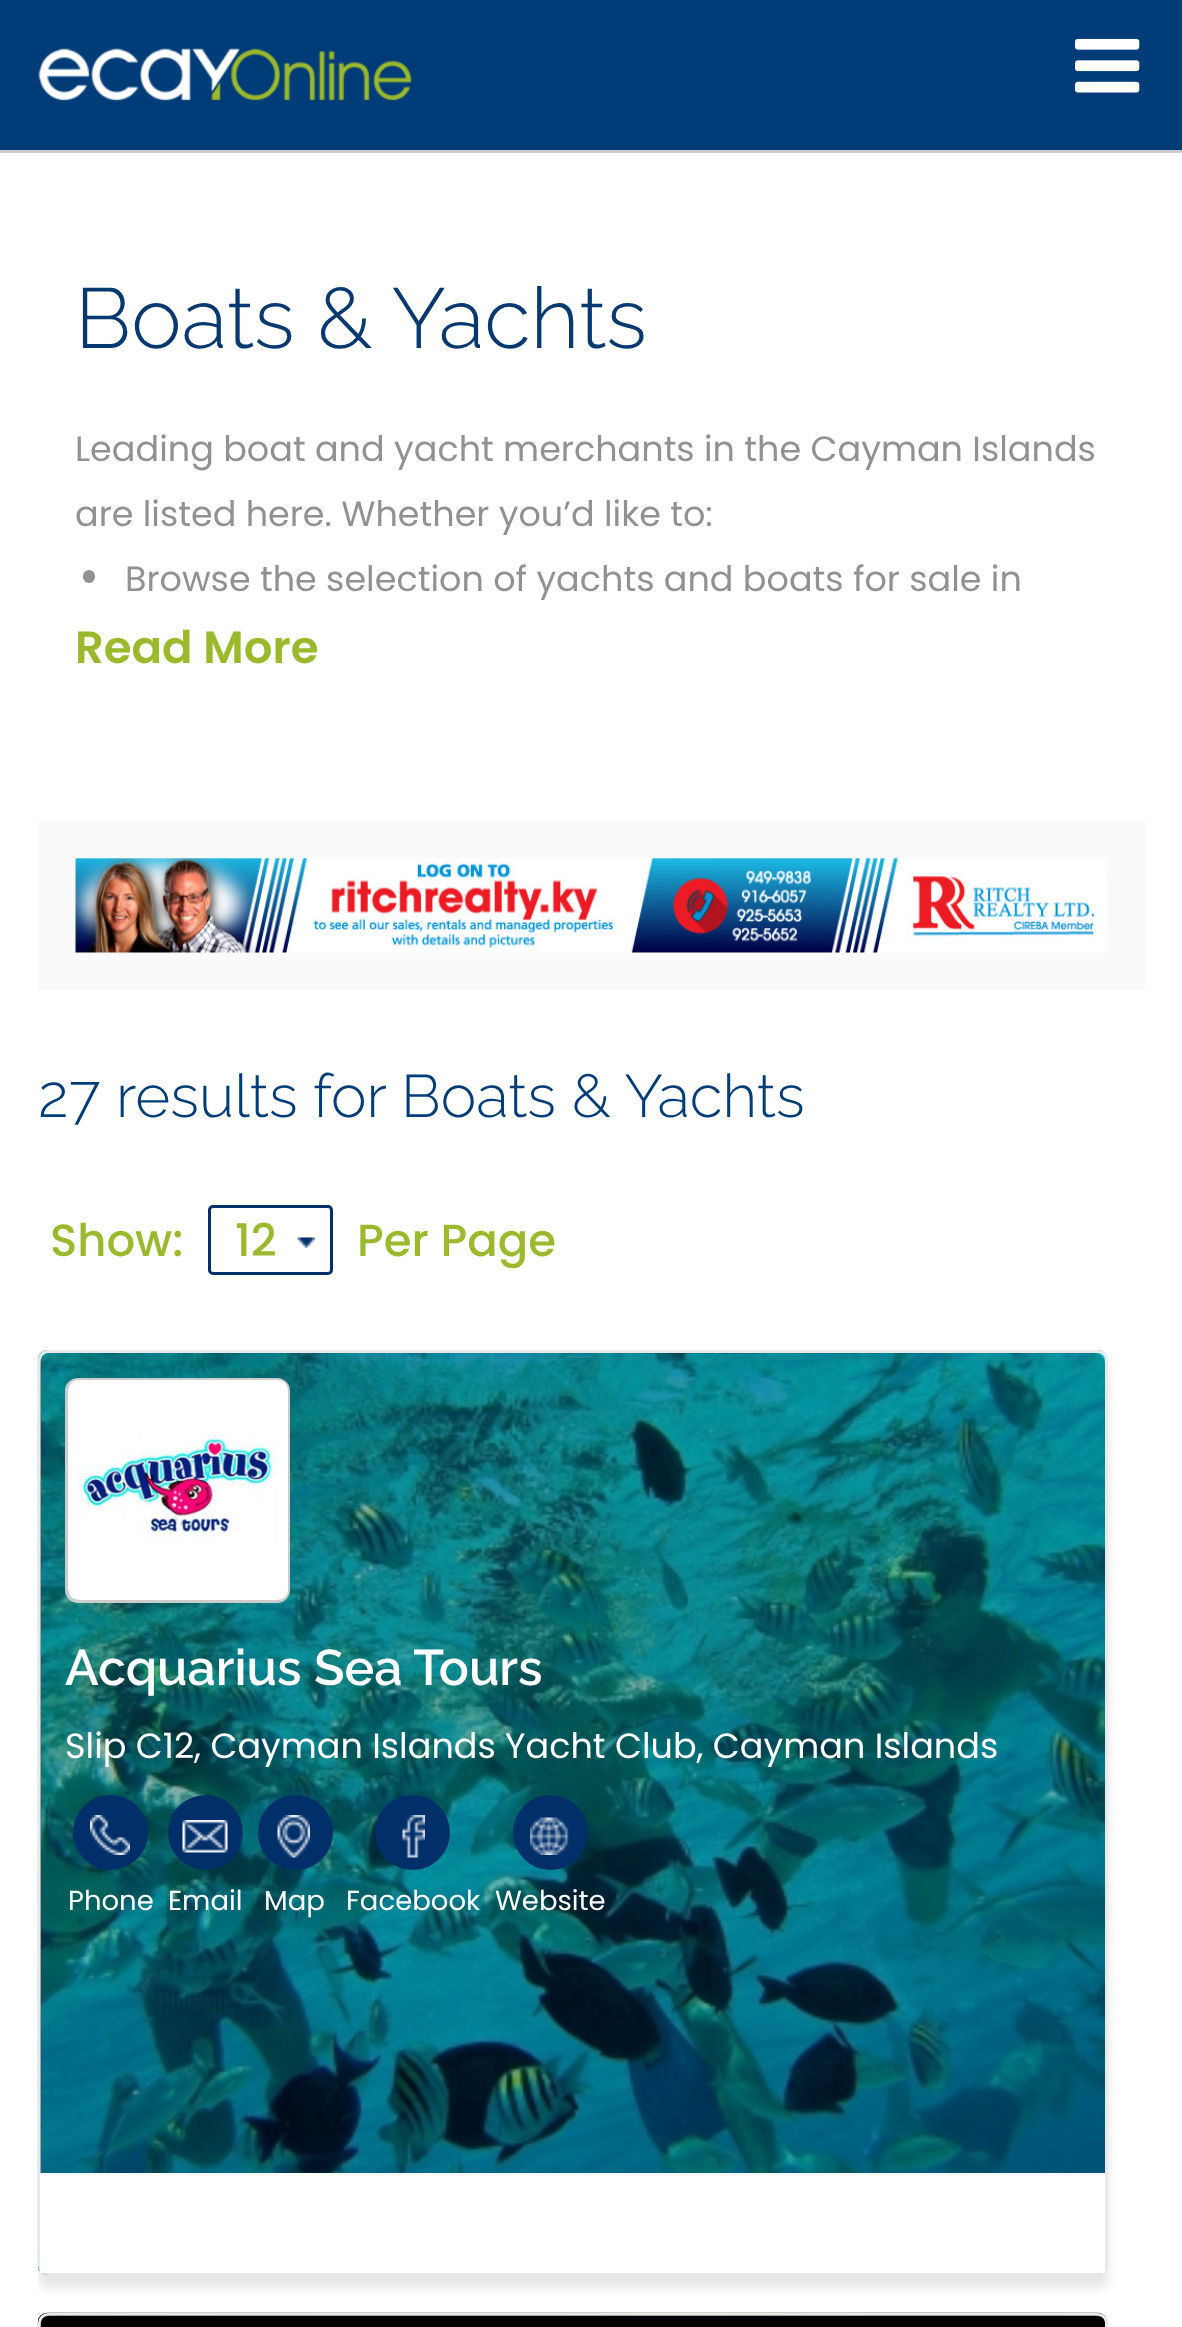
(async () => {
const canvas = document.querySelector("canvas")
canvas.width = 1182
canvas.height = 2327
const c = canvas.getContext("2d")
c.miterLimit = 4
c.fontKerning = "normal"
function T(s,x,y){c.fillText(s,x,y)}
function R(x,y,w,h){c.fillRect(x,y,w,h)}
function Q(x,y,w,h,r){c.beginPath();c.roundRect(x,y,w,h,r);c.fill()}
async function I(src,x,y,w,h){const img=new Image();img.src=src;await img.decode();c.drawImage(img,x,y,w,h)}
c.fillStyle="#fff"
R(0,0,1182,2327)
c.fillStyle="#003c77"
R(0,0,1182,150)
c.fillStyle="#ccc"
R(0,150,1182,3)
await I("1.png",38,48,374,53)
await I("2.png",1075,38,65,55)
c.font="300 85px Raleway"
c.fillStyle="#073870"
T("Boats & Yachts",75,348)
c.font="35px Poppins"
c.fillStyle="#919191"
T("Leading boat and yacht merchants in the Cayman Islands",75,461)
T("are listed here. Whether you’d like to:",75,526)
Q(83,570,12,13,6)
T("Browse the selection of yachts and boats for sale in",125,591)
c.font="600 45px Poppins"
c.fillStyle="#9bb92d"
T("Read More",75,663)
c.fillStyle="#fafafa"
R(38,820,1107,170)
await I("3.png",75,858,1032,95)
c.fillStyle="#fff"
R(1107,878,1,50)
c.font="300 60px Raleway"
c.fillStyle="#003c77"
T("27 results for Boats & Yachts",38,1117)
c.font="500 45px Poppins"
c.fillStyle="#9bb92d"
T("Show:",50,1256)
await I("4.png",297,1237,18,11)
c.beginPath()
c.roundRect(209.5,1206.5,122,67,3.5)
c.strokeStyle="#002f6a"
c.lineWidth=3
c.stroke()
T("12",235,1256)
T("Per Page",357,1256)
c.save()
c.beginPath()
c.rect(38,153,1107,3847)
c.clip()
c.fillStyle="#0000001a"
c.filter="blur(6px)"
c.beginPath()
c.roundRect(38,1363,1070,925,10)
c.fill()
c.filter="none"
c.restore()
await I("5.png",37,1350,1071,925)
c.beginPath()
c.roundRect(39.5,1351.5,1067,922,8.5)
c.strokeStyle="#e9e9e9"
c.stroke()
c.fillStyle="#0000004d"
Q(40,1353,1065,920,10)
c.beginPath()
c.roundRect(66.5,1379.5,222,222,11.5)
c.strokeStyle="#ccc"
c.stroke()
c.fillStyle="#fff"
Q(68,1380,220,220,10)
await I("6.png",77,1435,201,108)
c.font="600 50px Raleway"
T("Acquarius Sea Tours",65,1685)
c.font="35px Poppins"
T("Slip C12, Cayman Islands Yacht Club, Cayman Islands",65,1758)
c.fillStyle="#002f6a"
c.beginPath()
c.arc(110.5,1832.5,37.5,0,7)
c.fill()
await I("7.png",90,1815,40,40)
c.font="27.5px Poppins"
c.fillStyle="#fff"
T("Phone",68,1910)
c.fillStyle="#002f6a"
c.beginPath()
c.arc(205.5,1832.5,37.5,0,7)
c.fill()
await I("8.png",182,1820,46,33)
c.fillStyle="#fff"
T("Email",168,1910)
c.fillStyle="#002f6a"
c.beginPath()
c.arc(295.5,1832.5,37.5,0,7)
c.fill()
await I("9.png",277,1815,33,43)
c.fillStyle="#fff"
T("Map",264,1910)
c.fillStyle="#002f6a"
c.beginPath()
c.arc(412.5,1832.5,37.5,0,7)
c.fill()
await I("10.png",402,1815,23,43)
c.fillStyle="#fff"
T("Facebook",346,1910)
c.fillStyle="#002f6a"
c.beginPath()
c.arc(550.5,1832.5,37.5,0,7)
c.fill()
await I("11.png",530,1817,39,38)
c.fillStyle="#fff"
T("Website",495,1910)
R(40,2173,1065,100)
await I("12.png",37,2312,1071,15)
c.beginPath()
c.roundRect(39.5,2314.5,1067,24,8.5)
c.strokeStyle="#e9e9e9"
c.stroke()
c.fillStyle="#0000004d"
Q(40,2315,1065,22,10)
})()
